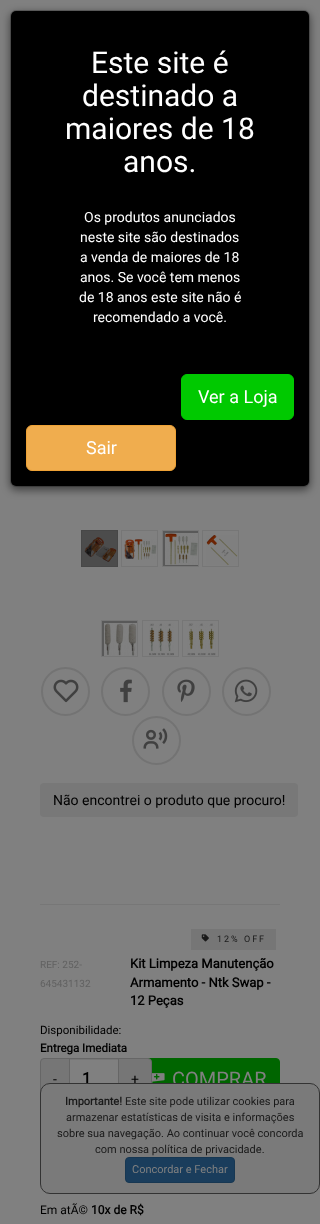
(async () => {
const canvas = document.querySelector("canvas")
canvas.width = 320
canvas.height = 1224
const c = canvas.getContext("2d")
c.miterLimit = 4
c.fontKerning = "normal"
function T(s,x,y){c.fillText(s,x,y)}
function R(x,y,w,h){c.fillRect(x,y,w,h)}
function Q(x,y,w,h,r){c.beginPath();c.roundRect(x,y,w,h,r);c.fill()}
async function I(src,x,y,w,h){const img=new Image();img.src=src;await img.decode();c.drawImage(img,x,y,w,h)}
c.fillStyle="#808080"
R(0,0,320,1224)
c.fillStyle="#00000080"
c.filter="blur(4.5px)"
c.beginPath()
c.roundRect(10,13,300,477,6)
c.fill()
c.filter="none"
c.fillStyle="#000"
Q(11,11,298,475,5)
c.beginPath()
c.roundRect(10.5,10.5,299,476,5.5)
c.strokeStyle="#00000033"
c.stroke()
c.font="30px Roboto"
c.fillStyle="#fff"
T("Este site é",91,73)
T("destinado a",82,106)
T("maiores de 18",65,139)
T("anos.",123,172)
c.font="14px Roboto"
T("Os produtos anunciados",84,222)
T("neste site são destinados",80,242)
T("a venda de maiores de 18",80,262)
T("anos. Se você tem menos",80,282)
T("de 18 anos este site não é",79,302)
T("recomendado a você.",93,322)
c.fillStyle="#00c900"
c.beginPath()
c.roundRect(181.5,374.5,112,45,5.5)
c.fill()
c.strokeStyle="#00c900"
c.stroke()
c.font="18px Roboto"
c.fillStyle="#fff"
T("Ver a Loja",198,403)
c.fillStyle="#f0ad4e"
c.beginPath()
c.roundRect(26.5,425.5,149,45,5.5)
c.fill()
c.strokeStyle="#eea236"
c.stroke()
c.fillStyle="#fff"
T("Sair",86,454)
c.fillStyle="#0000004d"
c.filter="blur(0.5px)"
c.beginPath()
c.rect(81,530,37,37)
c.fill()
c.filter="none"
c.strokeStyle="#474747"
c.strokeRect(81.5,530.5,36,36)
await I("1.png",82,531,35,35)
c.strokeStyle="#767676"
c.strokeRect(121.5,530.5,36,36)
await I("2.png",124,539,33,21)
c.filter="blur(0.5px)"
c.beginPath()
c.rect(162,530,37,37)
c.fill()
c.filter="none"
c.strokeRect(162.5,530.5,36,36)
await I("3.png",165,533,33,32)
c.strokeRect(202.5,530.5,36,36)
await I("4.png",206,535,32,30)
c.filter="blur(0.5px)"
c.beginPath()
c.rect(101,620,37,37)
c.fill()
c.filter="none"
c.strokeRect(101.5,620.5,36,36)
await I("5.png",104,623,33,33)
c.strokeRect(142.5,620.5,36,36)
await I("6.png",149,623,25,33)
c.strokeRect(182.5,620.5,36,36)
await I("7.png",187,623,29,33)
c.beginPath()
c.arc(65.5,691.5,23.5,0,7)
c.strokeStyle="#737373"
c.lineWidth=2
c.stroke()
await I("8.png",53,679,26,24)
c.beginPath()
c.arc(125.5,691.5,23.5,0,7)
c.stroke()
await I("9.png",120,679,12,24)
c.beginPath()
c.arc(186.5,691.5,23.5,0,7)
c.stroke()
await I("10.png",177,679,18,23)
c.beginPath()
c.arc(246.5,691.5,23.5,0,7)
c.stroke()
await I("11.png",234,679,24,24)
c.beginPath()
c.arc(156.5,740.5,23.5,0,7)
c.stroke()
await I("12.png",143,728,25,21)
c.fillStyle="#787878"
Q(40,783,258,34,4)
c.font="14px Roboto"
c.fillStyle="#000"
T("Não encontrei o produto que procuro!",53,805)
c.fillStyle="#777"
R(40,904,240,1)
c.fillStyle="#767676"
R(191,929,85,21)
await I("13.png",201,934,8,8)
c.letterSpacing="2px"
c.font="9px Roboto"
c.fillStyle="#1a1a1a"
T("12% OFF",217,942)
c.letterSpacing="0px"
c.font="10px Roboto"
c.fillStyle="#616161"
T("REF: 252-",40,968)
T("645431132",40,987)
c.font="bold 13px Roboto"
c.fillStyle="#000"
T("Kit Limpeza Manutenção",130,968)
T("Armamento - Ntk Swap -",130,987)
T("12 Peças",130,1005)
c.font="11.5px Roboto"
T("Disponibilidade:",40,1034)
c.font="bold 11.5px Roboto"
T("Entrega Imediata",40,1052)
c.fillStyle="#767676"
c.beginPath()
c.roundRect(40.5,1058.5,29,41,[3.5,0,0,3.5])
c.fill()
c.strokeStyle="#666"
c.lineWidth=1
c.stroke()
c.font="14px Roboto"
c.fillStyle="#000"
T("-",53,1084)
c.fillStyle="#767676"
R(70,1059,48,1)
c.strokeRect(69.5,1058.5,49,41)
c.font="bold 16px Roboto"
c.fillStyle="#000"
T("1",82,1084)
c.fillStyle="#006500"
c.beginPath()
c.roundRect(133.5,1058.5,146,42,3.5)
c.fill()
c.strokeStyle="#006500"
c.stroke()
c.fillStyle="#767676"
c.beginPath()
c.roundRect(118.5,1058.5,33,41,[0,3.5,3.5,0])
c.fill()
c.strokeStyle="#666"
c.stroke()
c.font="14px Roboto"
c.fillStyle="#000"
T("+",131,1084)
await I("14.png",152,1073,13,10)
c.font="20px Roboto"
c.fillStyle="#808080"
T("COMPRAR",172,1086)
c.font="12px Roboto"
c.fillStyle="#000"
T("Em atÃ©",40,1214)
c.font="bold 12px Roboto"
T("10x de R$",91,1214)
c.fillStyle="#7a7a7a"
c.beginPath()
c.roundRect(40.5,1083.5,279,110,9.5)
c.fill()
c.strokeStyle="#333"
c.stroke()
c.font="bold 11px Roboto"
c.fillStyle="#1a1a1a"
T("Importante!",65,1105)
c.font="11px Roboto"
T("Este site pode utilizar cookies para",125,1105)
T("armazenar estatísticas de visita e informações",66,1121)
T("sobre sua navegação. Ao continuar você concorda",57,1137)
T("com nossa política de privacidade.",95,1153)
c.fillStyle="#1a3d5c"
c.beginPath()
c.roundRect(125.5,1157.5,109,25,3.5)
c.fill()
c.strokeStyle="#173752"
c.stroke()
c.fillStyle="#808080"
T("Concordar e Fechar",132,1173)
})()
